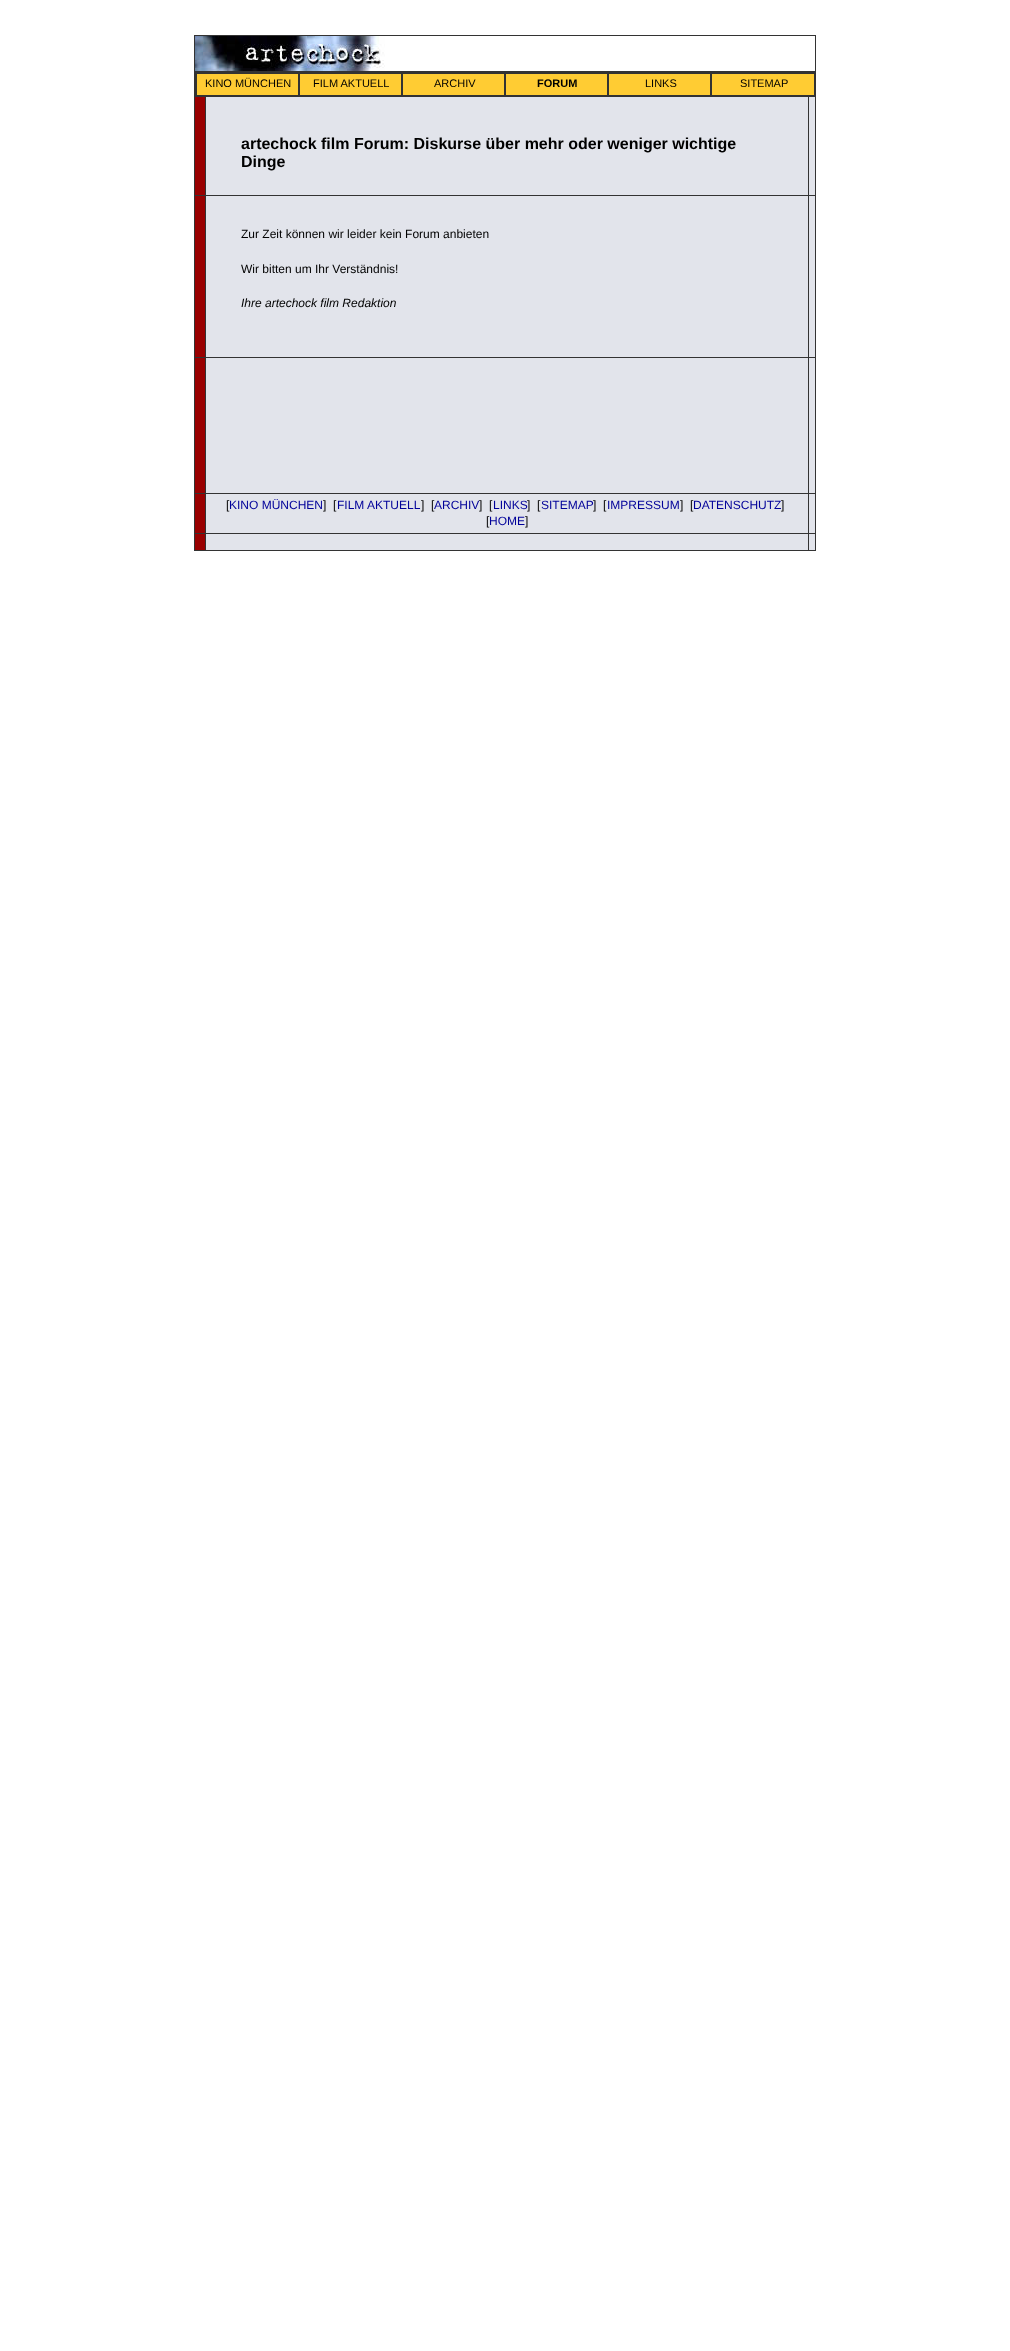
(async () => {
const canvas = document.querySelector("canvas")
canvas.width = 1010
canvas.height = 2351
const c = canvas.getContext("2d")
c.miterLimit = 4
c.fontKerning = "normal"
function T(s,x,y){c.fillText(s,x,y)}
function R(x,y,w,h){c.fillRect(x,y,w,h)}
async function I(src,x,y,w,h){const img=new Image();img.src=src;await img.decode();c.drawImage(img,x,y,w,h)}
c.fillStyle="#fff"
R(0,0,1010,2351)
c.fillStyle="#333"
R(194,35,622,516)
c.fillStyle="#fff"
R(385,36,430,35)
await I("1.png",195,36,190,35)
c.fillStyle="#fc3"
R(197,74,101,21)
c.font="11px Liberation Sans"
c.fillStyle="#000"
T("KINO MÜNCHEN",205,87)
c.fillStyle="#fc3"
R(300,74,101,21)
c.fillStyle="#000"
T("FILM AKTUELL",313,87)
c.fillStyle="#fc3"
R(403,74,101,21)
c.fillStyle="#000"
T("ARCHIV",434,87)
c.fillStyle="#fc3"
R(506,74,101,21)
c.font="bold 11px Liberation Sans"
c.fillStyle="#000"
T("FORUM",537,87)
c.fillStyle="#fc3"
R(609,74,101,21)
c.font="11px Liberation Sans"
c.fillStyle="#000"
T("LINKS",645,87)
c.fillStyle="#fc3"
R(712,74,102,21)
c.fillStyle="#000"
T("SITEMAP",740,87)
c.fillStyle="#e2e4eb"
R(809,97,6,98)
c.fillStyle="#900"
R(195,97,10,98)
c.fillStyle="#e2e4eb"
R(206,97,602,98)
c.font="bold 16px Liberation Sans"
c.fillStyle="#000"
T("artechock film Forum: Diskurse über mehr oder weniger wichtige",241,149)
T("Dinge",241,167)
c.fillStyle="#e2e4eb"
R(809,196,6,161)
c.fillStyle="#900"
R(195,196,10,161)
c.fillStyle="#e2e4eb"
R(206,196,602,161)
c.font="12px Liberation Sans"
c.fillStyle="#000"
T("Zur Zeit können wir leider kein Forum anbieten",241,238)
T("Wir bitten um Ihr Verständnis!",241,273)
c.font="italic 12px Liberation Sans"
T("Ihre artechock film Redaktion",241,307)
c.fillStyle="#e2e4eb"
R(809,358,6,135)
c.fillStyle="#900"
R(195,358,10,135)
c.fillStyle="#e2e4eb"
R(206,358,602,135)
R(809,494,6,39)
c.fillStyle="#900"
R(195,494,10,39)
c.fillStyle="#e2e4eb"
R(206,494,602,39)
c.font="12px Liberation Sans"
c.fillStyle="#000"
T("[",226,509)
c.fillStyle="#009"
T("KINO MÜNCHEN",229,509)
c.fillStyle="#000"
T("]  [",323,509)
c.fillStyle="#009"
T("FILM AKTUELL",337,509)
c.fillStyle="#000"
T("]  [",421,509)
c.fillStyle="#009"
T("ARCHIV",434,509)
c.fillStyle="#000"
T("]  [",479,509)
c.fillStyle="#009"
T("LINKS",493,509)
c.fillStyle="#000"
T("]  [",527,509)
c.fillStyle="#009"
T("SITEMAP",541,509)
c.fillStyle="#000"
T("]  [",593,509)
c.fillStyle="#009"
T("IMPRESSUM",607,509)
c.fillStyle="#000"
T("]  [",680,509)
c.fillStyle="#009"
T("DATENSCHUTZ",693,509)
c.fillStyle="#000"
T("]",781,509)
T("[",486,525)
c.fillStyle="#009"
T("HOME",489,525)
c.fillStyle="#000"
T("]",525,525)
c.fillStyle="#e2e4eb"
R(809,534,6,16)
c.fillStyle="#900"
R(195,534,10,16)
c.fillStyle="#e2e4eb"
R(206,534,602,16)
})()
